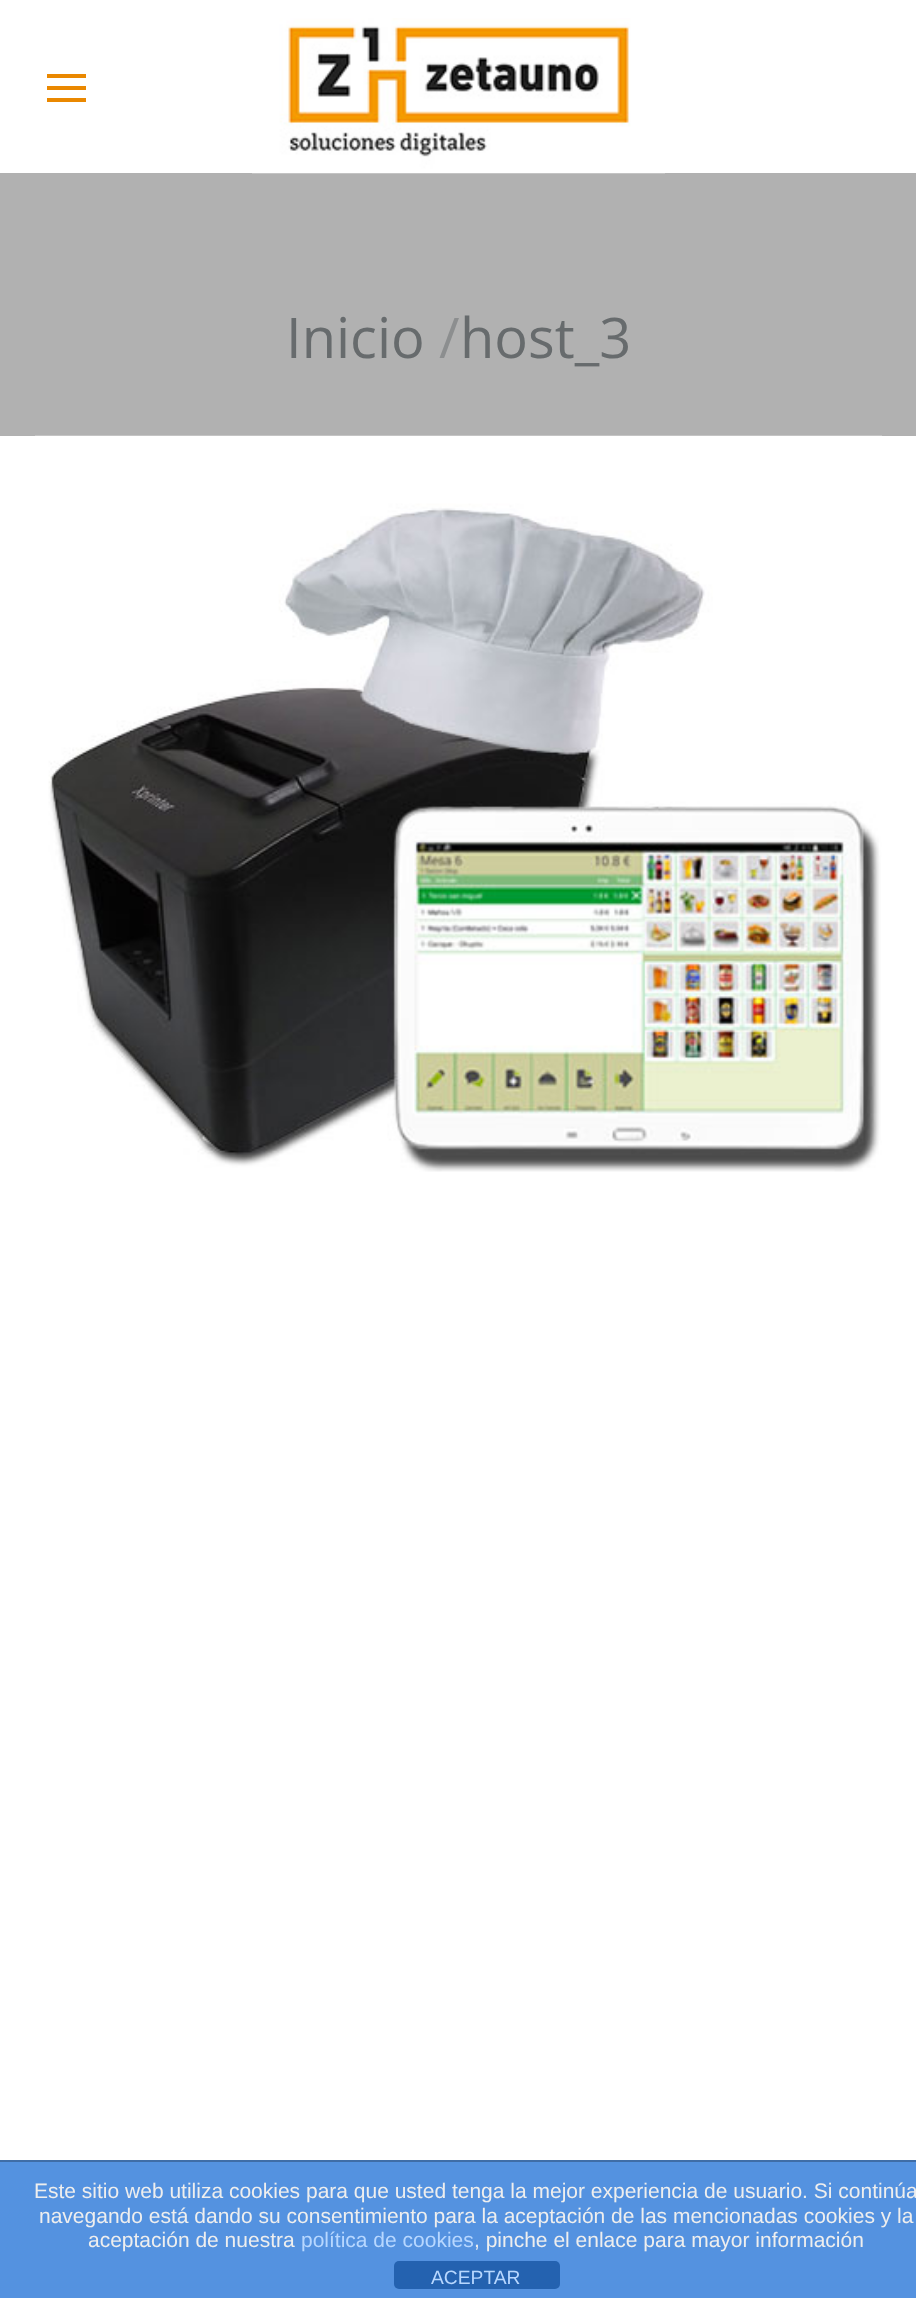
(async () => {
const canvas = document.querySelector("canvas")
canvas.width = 916
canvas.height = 2298
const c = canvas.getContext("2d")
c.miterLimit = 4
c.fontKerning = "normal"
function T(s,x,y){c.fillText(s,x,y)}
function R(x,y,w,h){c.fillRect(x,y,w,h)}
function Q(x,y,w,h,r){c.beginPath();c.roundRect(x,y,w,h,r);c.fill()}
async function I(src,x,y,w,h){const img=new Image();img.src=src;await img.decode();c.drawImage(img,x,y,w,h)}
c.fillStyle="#fff"
R(0,0,916,2298)
c.fillStyle="#ea8800"
R(47,86,39,4)
R(47,74,39,4)
R(47,98,39,4)
c.fillStyle="#b1b1b1"
R(0,173,916,263)
await I("1.png",252,18,413,156)
c.font="56px Open Sans"
c.fillStyle="#676b6d"
T("Inicio",286,358)
c.fillStyle="#8c8e8f"
T("/",439,358)
c.fillStyle="#676b6d"
T("host_3",460,358)
await I("2.png",35,435,847,737)
c.fillStyle="#5492e0"
R(0,2162,916,136)
c.fillStyle="#3f6da7"
R(0,2160,916,2)
c.font="21px Liberation Sans"
c.fillStyle="#eee"
T("Este sitio web utiliza cookies para que usted tenga la mejor experiencia de usuario. Si continúa",34,2198)
T("navegando está dando su consentimiento para la aceptación de las mencionadas cookies y la",39,2223)
T("aceptación de nuestra",88,2247)
c.fillStyle="#b7d7ff"
T("política de cookies",301,2247)
c.fillStyle="#eee"
T(", pinche el enlace para mayor información",474,2247)
c.fillStyle="#2462b0"
Q(394,2261,166,28,5)
c.font="19.25px Liberation Sans"
c.fillStyle="#b7d7ff"
T("ACEPTAR",431,2284)
})()
